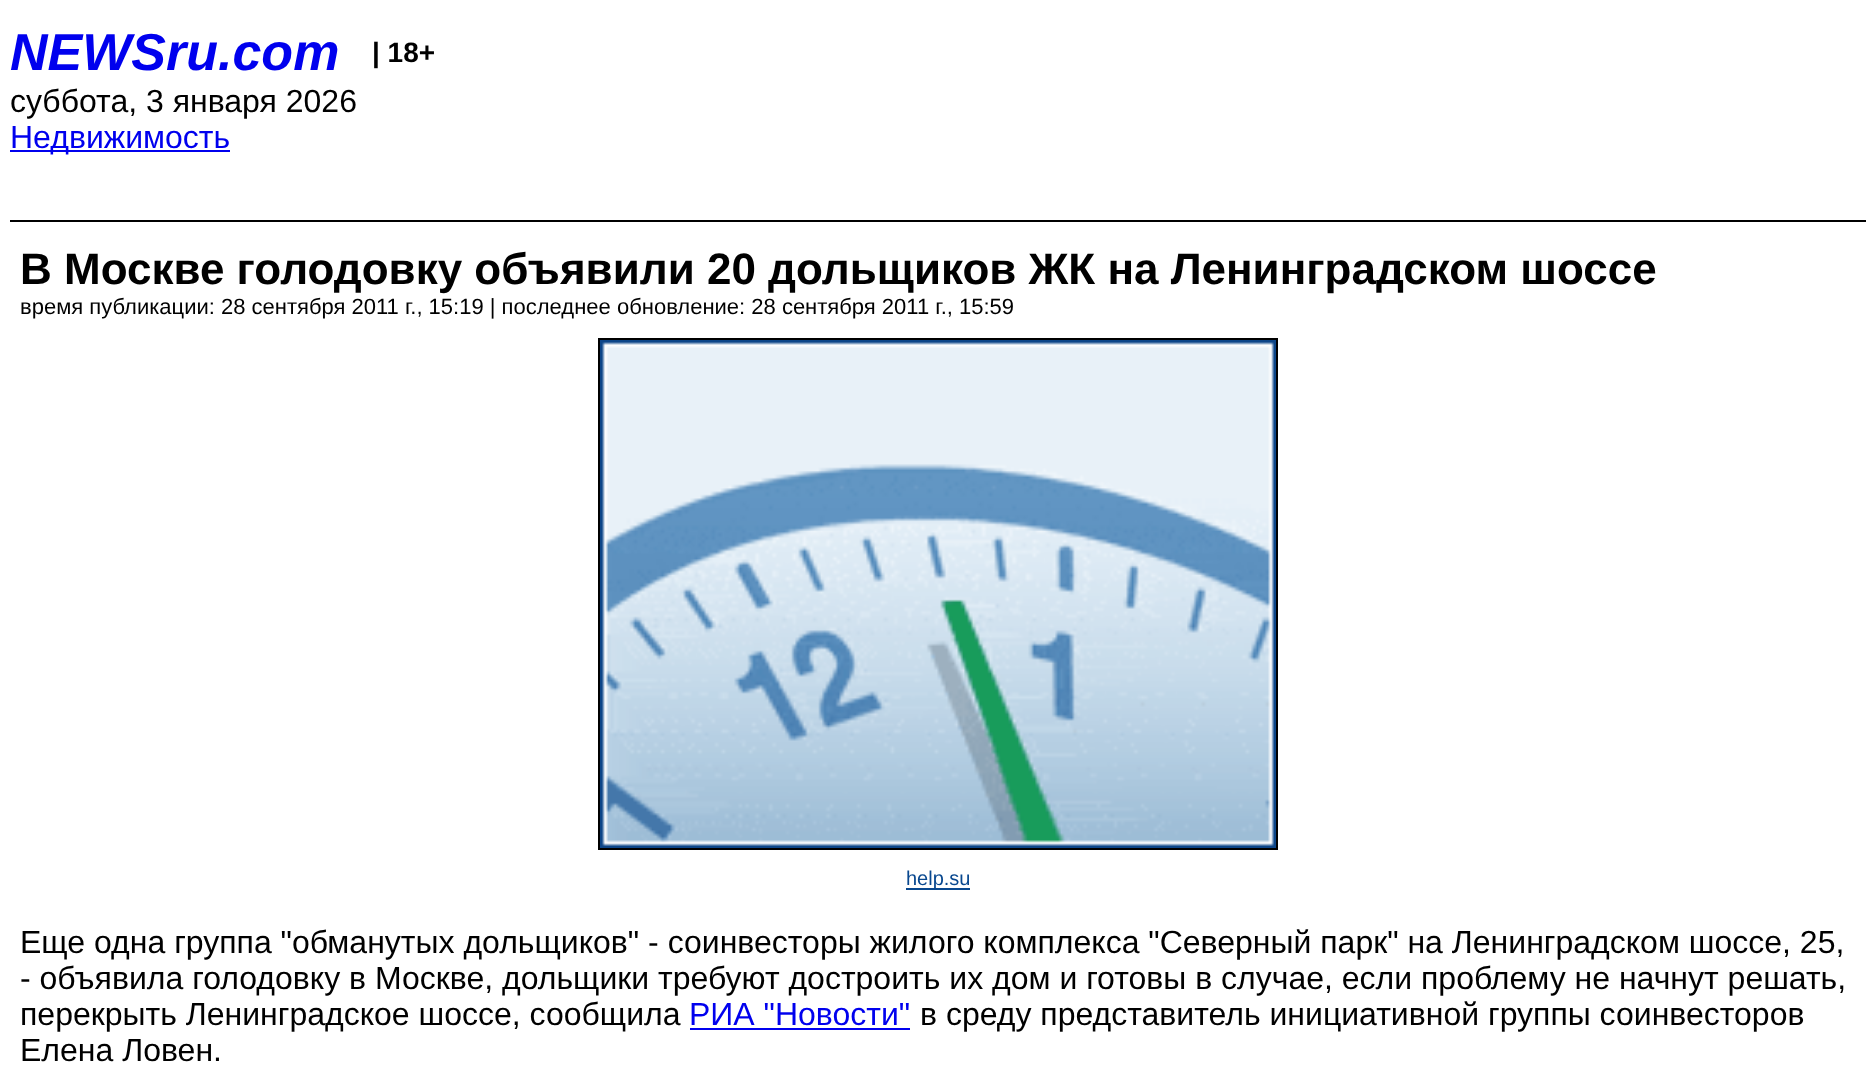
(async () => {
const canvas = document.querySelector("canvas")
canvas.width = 1876
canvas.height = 1065
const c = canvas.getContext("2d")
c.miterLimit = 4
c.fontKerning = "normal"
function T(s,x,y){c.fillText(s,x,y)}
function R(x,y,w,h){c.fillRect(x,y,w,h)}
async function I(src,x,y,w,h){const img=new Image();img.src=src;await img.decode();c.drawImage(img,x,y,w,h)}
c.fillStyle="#fff"
R(0,0,1876,1065)
c.fillStyle="#000"
R(10,220,1856,2)
c.font="italic bold 52px Liberation Sans"
c.fillStyle="#00e"
T("NEWSru.com",10,70)
c.font="bold 28px Liberation Sans"
c.fillStyle="#000"
T("| 18+",372,62)
c.font="32px Liberation Sans"
T("суббота, 3 января 2026",10,112)
c.fillStyle="#00e"
R(10,150,220,2)
T("Недвижимость",10,148)
c.font="bold 44px Liberation Sans"
c.fillStyle="#000"
T("В Москве голодовку объявили 20 дольщиков ЖК на Ленинградском шоссе",20,284)
c.font="22px Liberation Sans"
T("время публикации: 28 сентября 2011 г., 15:19 | последнее обновление: 28 сентября 2011 г., 15:59",20,314)
c.strokeStyle="#000"
c.lineWidth=2
c.strokeRect(599,339,678,510)
await I("1.png",600,340,676,508)
c.fillStyle="#09488f"
R(906,888,64,2)
c.font="20px Liberation Sans"
T("help.su",906,885)
c.font="32px Liberation Sans"
c.fillStyle="#000"
T("Еще одна группа \"обманутых дольщиков\" - соинвесторы жилого комплекса \"Северный парк\" на Ленинградском шоссе, 25,",20,953)
T("- объявила голодовку в Москве, дольщики требуют достроить их дом и готовы в случае, если проблему не начнут решать,",20,989)
T("перекрыть Ленинградское шоссе, сообщила",20,1025)
c.fillStyle="#00e"
T("РИА \"Новости\"",689,1025)
R(690,1028,220,2)
c.fillStyle="#000"
T("в среду представитель инициативной группы соинвесторов",920,1025)
T("Елена Ловен.",20,1061)
})()
